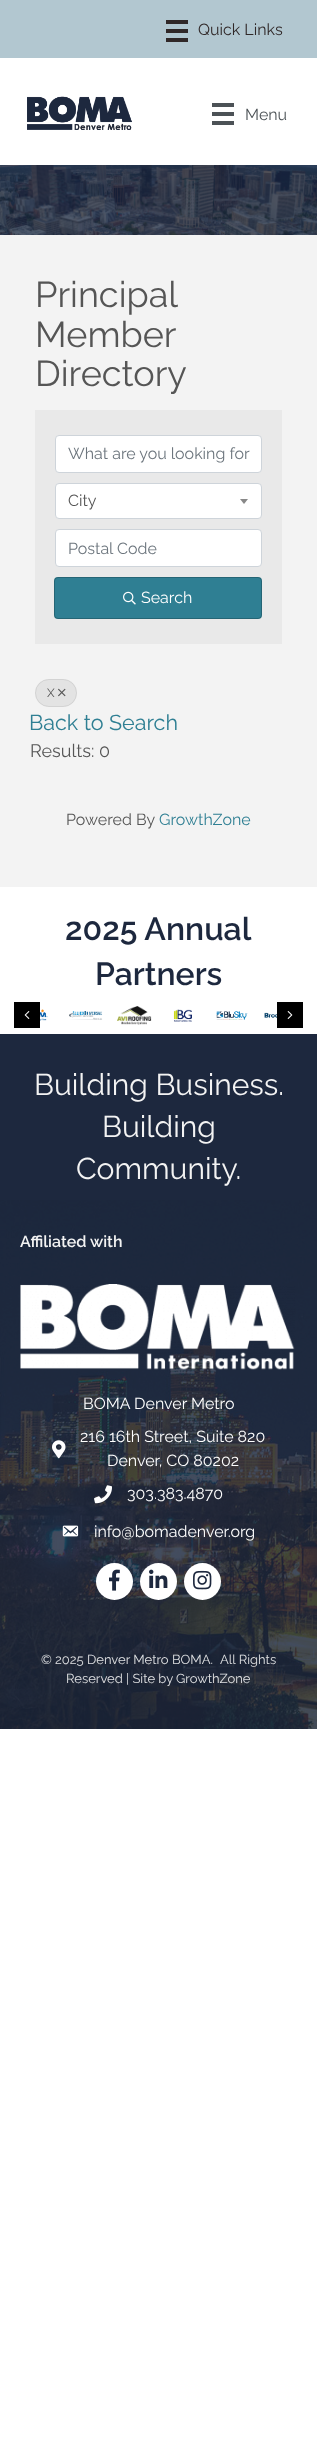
(async () => {
const canvas = document.querySelector("canvas")
canvas.width = 317
canvas.height = 2441
const c = canvas.getContext("2d")
c.miterLimit = 4
c.fontKerning = "normal"
function T(s,x,y){c.fillText(s,x,y)}
function R(x,y,w,h){c.fillRect(x,y,w,h)}
function Q(x,y,w,h,r){c.beginPath();c.roundRect(x,y,w,h,r);c.fill()}
async function I(src,x,y,w,h){const img=new Image();img.src=src;await img.decode();c.drawImage(img,x,y,w,h)}
let path
c.fillStyle="#fff"
R(0,0,317,2441)
c.fillStyle="#b2c7d0"
R(0,0,317,58)
c.fillStyle="#302828"
R(166,20,22,4)
R(166,29,22,4)
R(166,38,22,4)
c.font="16px Raleway"
T("Quick Links",198,35)
await I("1.png",27,96,105,34)
c.fillStyle="#4c5256"
R(212,103,22,4)
R(212,112,22,4)
R(212,121,22,4)
T("Menu",245,120)
c.fillStyle="#f3f3f3"
R(0,235,317,652)
await I("2.png",0,165,317,70)
c.font="36px Raleway"
c.fillStyle="#555"
T("Principal",35,307)
T("Member",35,347)
T("Directory",35,386)
c.fillStyle="#e9e9e9"
R(35,410,247,234)
c.fillStyle="#fff"
c.beginPath()
c.roundRect(55.5,435.5,206,37,3.5)
c.fill()
c.strokeStyle="#ced4da"
c.stroke()
c.font="16px Raleway"
c.fillStyle="#6c757d"
T("What are you looking for",68,459)
c.fillStyle="#fff"
c.beginPath()
c.roundRect(55.5,483.5,206,35,3.5)
c.fill()
c.stroke()
c.fillStyle="#555"
T("City",68,506)
c.fillStyle="#888"
path = new Path2D("M240 499h8l-4 5z")
c.fill(path)
c.fillStyle="#fff"
c.beginPath()
c.roundRect(55.5,529.5,206,37,3.5)
c.fill()
c.stroke()
c.fillStyle="#6c757d"
T("Postal Code",68,554)
c.fillStyle="#2f7f93"
Q(54,577,208,42,4)
c.beginPath()
c.roundRect(54.5,577.5,207,41,3.5)
c.strokeStyle="#00000033"
c.stroke()
await I("3.png",123,591,13,14)
c.fillStyle="#fff"
T("Search",141,603)
c.fillStyle="#e3e3e3"
Q(35,679,42,28,14)
c.beginPath()
c.roundRect(35.5,679.5,41,27,13.5)
c.strokeStyle="#00000012"
c.stroke()
c.font="12px Raleway"
c.fillStyle="#555"
T("X",47,697)
await I("4.png",58,688,8,9)
c.font="21.5px Raleway"
c.fillStyle="#2f7f93"
T("Back to Search",29,730)
c.font="18px Raleway"
c.fillStyle="#555"
T("Results: 0",30,757)
c.font="16px Raleway"
T("Powered By",66,825)
c.fillStyle="#2f7f93"
T("GrowthZone",159,825)
c.font="600 32px Raleway"
c.fillStyle="#1d283e"
T("2025 Annual",65,940)
T("Partners",95,985)
c.fillStyle="#000"
R(14,1002,26,26)
await I("5.png",24,1011,6,8)
await I("6.png",40,1009,8,12)
await I("7.png",69,1011,34,9)
await I("8.png",117,1006,35,19)
await I("9.png",173,1009,19,13)
await I("10.png",216,1011,32,9)
await I("11.png",264,1012,13,6)
R(277,1002,26,26)
await I("12.png",287,1011,6,8)
c.fillStyle="#1d283e"
R(0,1034,317,166)
c.font="30px Raleway"
c.fillStyle="#f3f3f3"
T("Building Business.",34,1095)
T("Building",102,1137)
T("Community.",76,1179)
await I("13.png",0,1200,317,529)
c.font="600 16px Raleway"
T("Affiliated with",20,1247)
await I("14.png",20,1284,275,86)
c.font="16px Raleway"
c.fillStyle="#fff"
T("BOMA Denver Metro",83,1409)
await I("15.png",52,1440,14,19)
T("216 16th Street, Suite 820",80,1442)
T("Denver, CO 80202",107,1466)
await I("16.png",94,1485,18,19)
T("303.383.4870",127,1499)
await I("17.png",62,1525,17,12)
T("info@bomadenver.org",94,1537)
c.beginPath()
c.arc(114.5,1581.5,18.5,0,7)
c.fill()
await I("18.png",109,1569,11,22)
c.beginPath()
c.arc(158.5,1581.5,18.5,0,7)
c.fill()
await I("19.png",149,1569,19,19)
c.beginPath()
c.arc(202.5,1581.5,18.5,0,7)
c.fill()
await I("20.png",193,1570,19,20)
c.font="13px Raleway"
c.fillStyle="#dfe0e2"
T("©",41,1664)
T("2025",55,1664)
T("Denver Metro BOMA.",87,1664)
T("All Rights",220,1664)
T("Reserved | Site by",66,1683)
T("GrowthZone",176,1683)
})()
